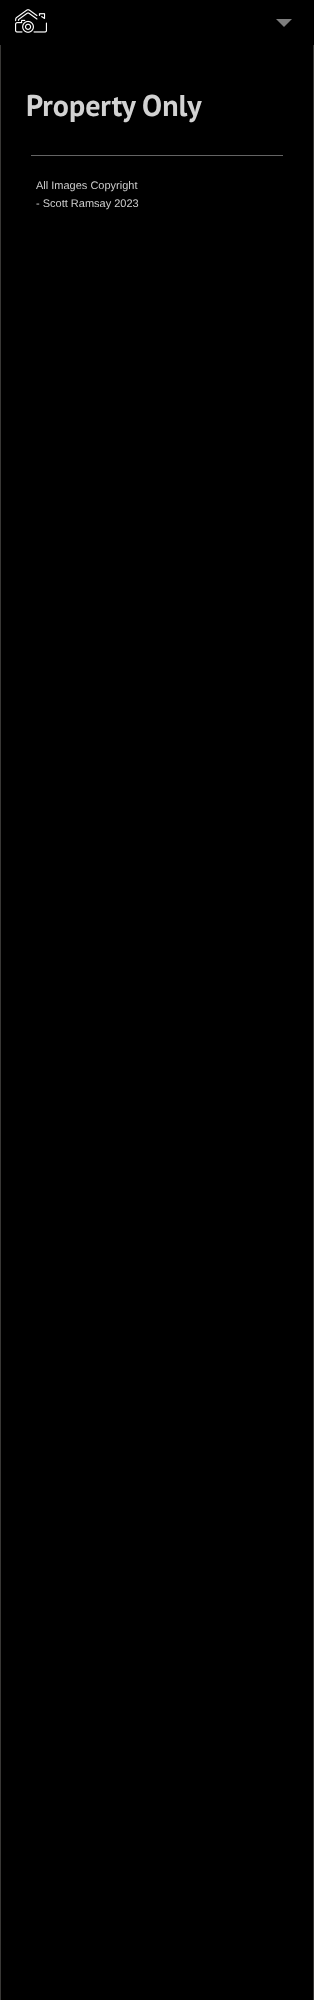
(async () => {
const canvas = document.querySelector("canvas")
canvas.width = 314
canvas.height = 2000
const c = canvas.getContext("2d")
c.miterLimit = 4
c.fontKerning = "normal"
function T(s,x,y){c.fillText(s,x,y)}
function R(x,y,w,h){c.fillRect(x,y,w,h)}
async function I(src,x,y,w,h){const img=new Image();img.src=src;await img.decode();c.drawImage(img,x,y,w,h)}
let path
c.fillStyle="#000"
R(0,0,314,2000)
await I("1.png",15,9,32,24)
c.fillStyle="#7e7e7e"
path = new Path2D("M276 19h16l-8 8z")
c.fill(path)
c.fillStyle="#393836"
R(313,45,1,1955)
R(0,45,1,1955)
c.font="bold 30px PT Sans"
c.fillStyle="#d2d2d2"
T("Property Only",26,116)
c.fillStyle="#646464"
R(31,155,252,1)
c.font="11px Liberation Sans"
c.fillStyle="#ccc"
T("All Images Copyright",36,189)
T("- Scott Ramsay 2023",36,207)
})()
